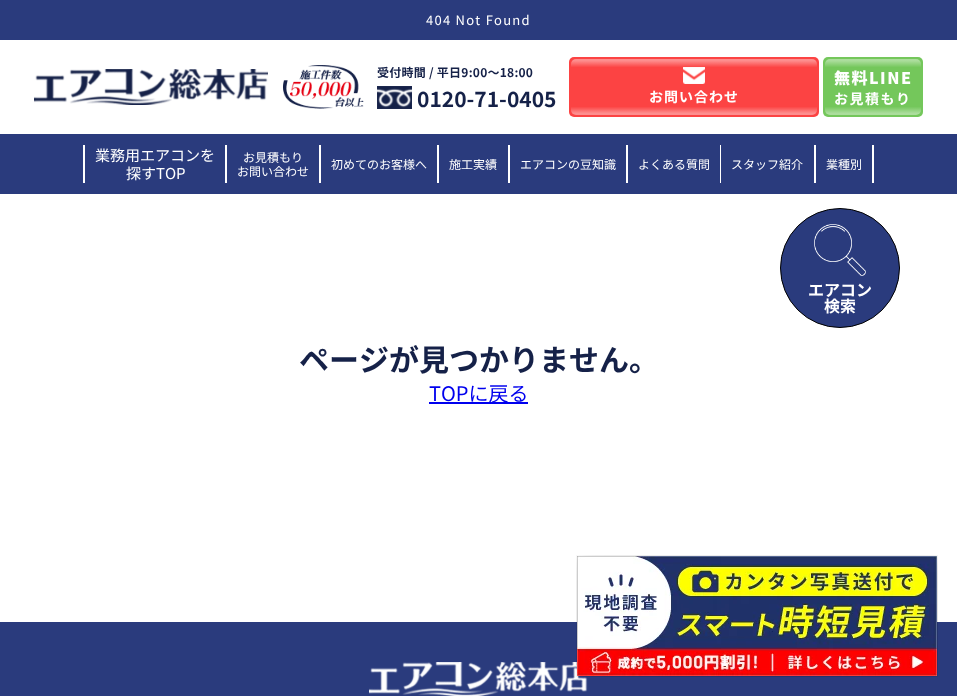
(async () => {
const canvas = document.querySelector("canvas")
canvas.width = 957
canvas.height = 696
const c = canvas.getContext("2d")
c.miterLimit = 4
c.fontKerning = "none"
function T(s,x,y){c.fillText(s,x,y)}
function R(x,y,w,h){c.fillRect(x,y,w,h)}
function Q(x,y,w,h,r){c.beginPath();c.roundRect(x,y,w,h,r);c.fill()}
async function I(src,x,y,w,h){const img=new Image();img.src=src;await img.decode();c.drawImage(img,x,y,w,h)}
let gradient
c.fillStyle="#fff"
R(0,0,957,696)
c.fillStyle="#2a3b7d"
R(0,0,957,40)
c.letterSpacing="1.25px"
c.font="13px Noto Sans JP"
c.fillStyle="#fff"
T("404 Not Found",426,25)
await I("1.png",34,69,234,36)
await I("2.png",283,65,81,44)
c.letterSpacing="0.25px"
c.font="bold 12px Noto Sans JP"
c.fillStyle="#152148"
T("受付時間 / 平日9:00〜18:00",377,77)
await I("3.png",377,86,35,23)
c.letterSpacing="0px"
c.font="bold 21px Noto Sans JP"
T("0120-71-0405",417,107)
c.fillStyle="#fc4343"
Q(569,57,250,60,5)
await I("4.png",683,67,22,17)
gradient = c.createLinearGradient(694,115,694,59)
gradient.addColorStop(.03,"#ffffff66")
gradient.addColorStop(.15,"#ffffff00")
gradient.addColorStop(.85,"#ffffff00")
gradient.addColorStop(.97,"#ffffff66")
c.fillStyle = gradient
Q(571,59,246,56,5)
c.letterSpacing="1px"
c.font="bold 14px Noto Sans JP"
c.fillStyle="#fff"
T("お問い合わせ",649,102)
c.fillStyle="#74c75b"
Q(823,57,100,60,5)
gradient = c.createLinearGradient(873,115,873,59)
gradient.addColorStop(.03,"#ffffff66")
gradient.addColorStop(.15,"#ffffff00")
gradient.addColorStop(.85,"#ffffff00")
gradient.addColorStop(.97,"#ffffff66")
c.fillStyle = gradient
Q(825,59,96,56,5)
c.letterSpacing="1.5px"
c.font="900 16px Noto Sans JP"
c.fillStyle="#fff"
T("無料LINE",834,84)
c.font="bold 14px Noto Sans JP"
T("お見積もり",834,104)
c.fillStyle="#2a3b7d"
R(0,134,957,60)
c.fillStyle="#fff"
R(83,145,2,38)
c.letterSpacing="0px"
c.font="15px Noto Sans JP"
T("業務用エアコンを",95,161)
T("探すTOP",126,179)
R(225,145,2,38)
c.font="12px Noto Sans JP"
T("お見積もり",243,162)
T("お問い合わせ",237,176)
R(319,145,2,38)
T("初めてのお客様へ",331,169)
R(437,145,2,38)
T("施工実績",449,169)
R(508,145,2,38)
T("エアコンの豆知識",520,169)
R(626,145,2,38)
T("よくある質問",638,169)
R(720,145,1,38)
T("スタッフ紹介",731,169)
R(814,145,2,38)
T("業種別",826,169)
R(872,145,2,38)
c.fillStyle="#2a3b7d"
c.beginPath()
c.arc(840,268,59.5,0,7)
c.fill()
c.strokeStyle="#000"
c.stroke()
await I("5.png",814,224,52,52)
c.font="bold 16px Noto Sans JP"
c.fillStyle="#fff"
T("エアコン",808,296)
T("検索",824,312)
c.font="bold 30px Noto Sans JP"
c.fillStyle="#152148"
T("ページが見つかりません。",299,371)
c.fillStyle="#00e"
R(429,402,99,2)
c.font="20px Noto Sans JP"
T("TOPに戻る",429,401)
c.fillStyle="#2a3b7d"
R(0,622,957,74)
await I("7.png",369,662,219,34)
await I("6.png",576,555,362,122)
})()
